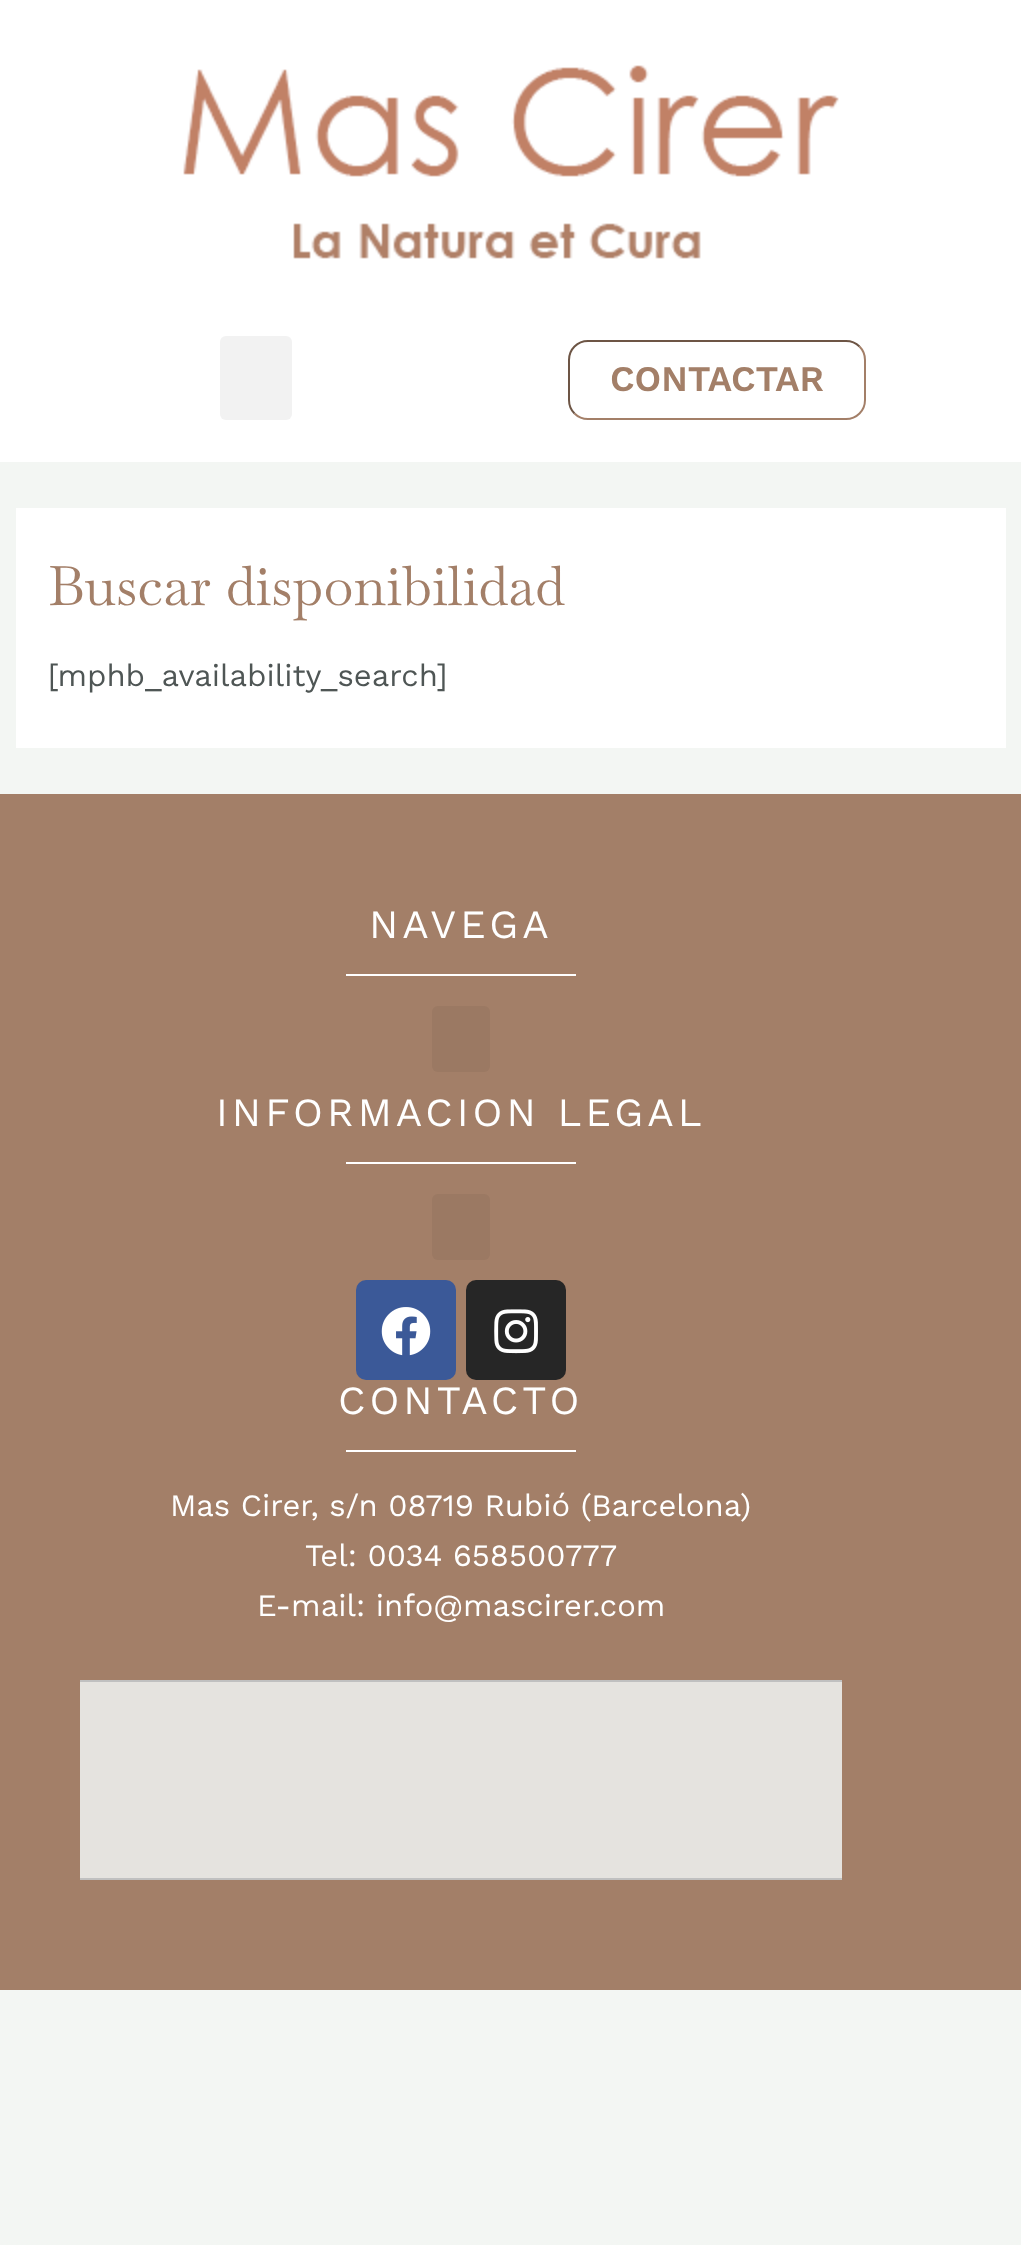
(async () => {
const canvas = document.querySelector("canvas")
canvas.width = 1021
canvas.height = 2245
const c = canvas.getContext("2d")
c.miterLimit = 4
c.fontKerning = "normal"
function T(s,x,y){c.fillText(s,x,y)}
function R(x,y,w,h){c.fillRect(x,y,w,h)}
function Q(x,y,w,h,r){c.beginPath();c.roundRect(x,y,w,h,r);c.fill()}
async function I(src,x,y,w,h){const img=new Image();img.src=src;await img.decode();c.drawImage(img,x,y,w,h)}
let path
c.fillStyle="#f3f6f3"
R(0,0,1021,2245)
c.fillStyle="#fff"
R(0,0,1021,462)
await I("1.png",183,65,656,194)
c.fillStyle="#f2f2f2"
Q(220,336,72,84,6)
path = new Path2D("M859.5 346.5c3.5 3.5 5.5 8.5 5.5 13.5v40c0 5-2 10-5.5 13.5c-3.5 3.5-8.5 5.5-13.5 5.5h-258c-5 0-10-2-13.5-5.5")
c.strokeStyle="#a37f68"
c.lineWidth=2
c.stroke(path)
path = new Path2D("M574.5 413.5c-3.5-3.5-5.5-8.5-5.5-13.5v-40c0-5 2-10 5.5-13.5c3.5-3.5 8.5-5.5 13.5-5.5h258c5 0 10 2 13.5 5.5")
c.strokeStyle="#6d5545"
c.stroke(path)
c.font="600 36px Work Sans"
c.fillStyle="#a37f68"
T("CONTACTAR",610,391)
c.fillStyle="#fff"
R(16,508,990,240)
c.font="54.75px Baskervville"
c.fillStyle="#a37f68"
T("Buscar disponibilidad",48,605)
c.font="31px Work Sans"
c.fillStyle="#4f5655"
T("[mphb_availability_search]",48,686)
c.fillStyle="#a37f68"
R(0,794,1021,1196)
c.letterSpacing="4px"
c.font="40px Work Sans"
c.fillStyle="#fff"
T("NAVEGA",369,938)
R(346,974,230,2)
c.fillStyle="#9b7963"
Q(432,1006,58,66,6)
c.fillStyle="#fff"
T("INFORMACION LEGAL",216,1126)
R(346,1162,230,2)
c.fillStyle="#9b7963"
Q(432,1194,58,66,6)
c.fillStyle="#3b5998"
Q(356,1280,100,100,10)
await I("2.png",381,1307,50,49)
c.fillStyle="#262626"
Q(466,1280,100,100,10)
await I("3.png",494,1309,44,45)
c.fillStyle="#fff"
T("CONTACTO",338,1414)
R(346,1450,230,2)
c.letterSpacing="0px"
c.font="31px Work Sans"
T("Mas Cirer, s/n 08719 Rubió (Barcelona)",170,1516)
T("Tel: 0034 658500777",305,1566)
T("E-mail: info@mascirer.com",257,1616)
await I("4.png",80,1680,762,200)
})()
